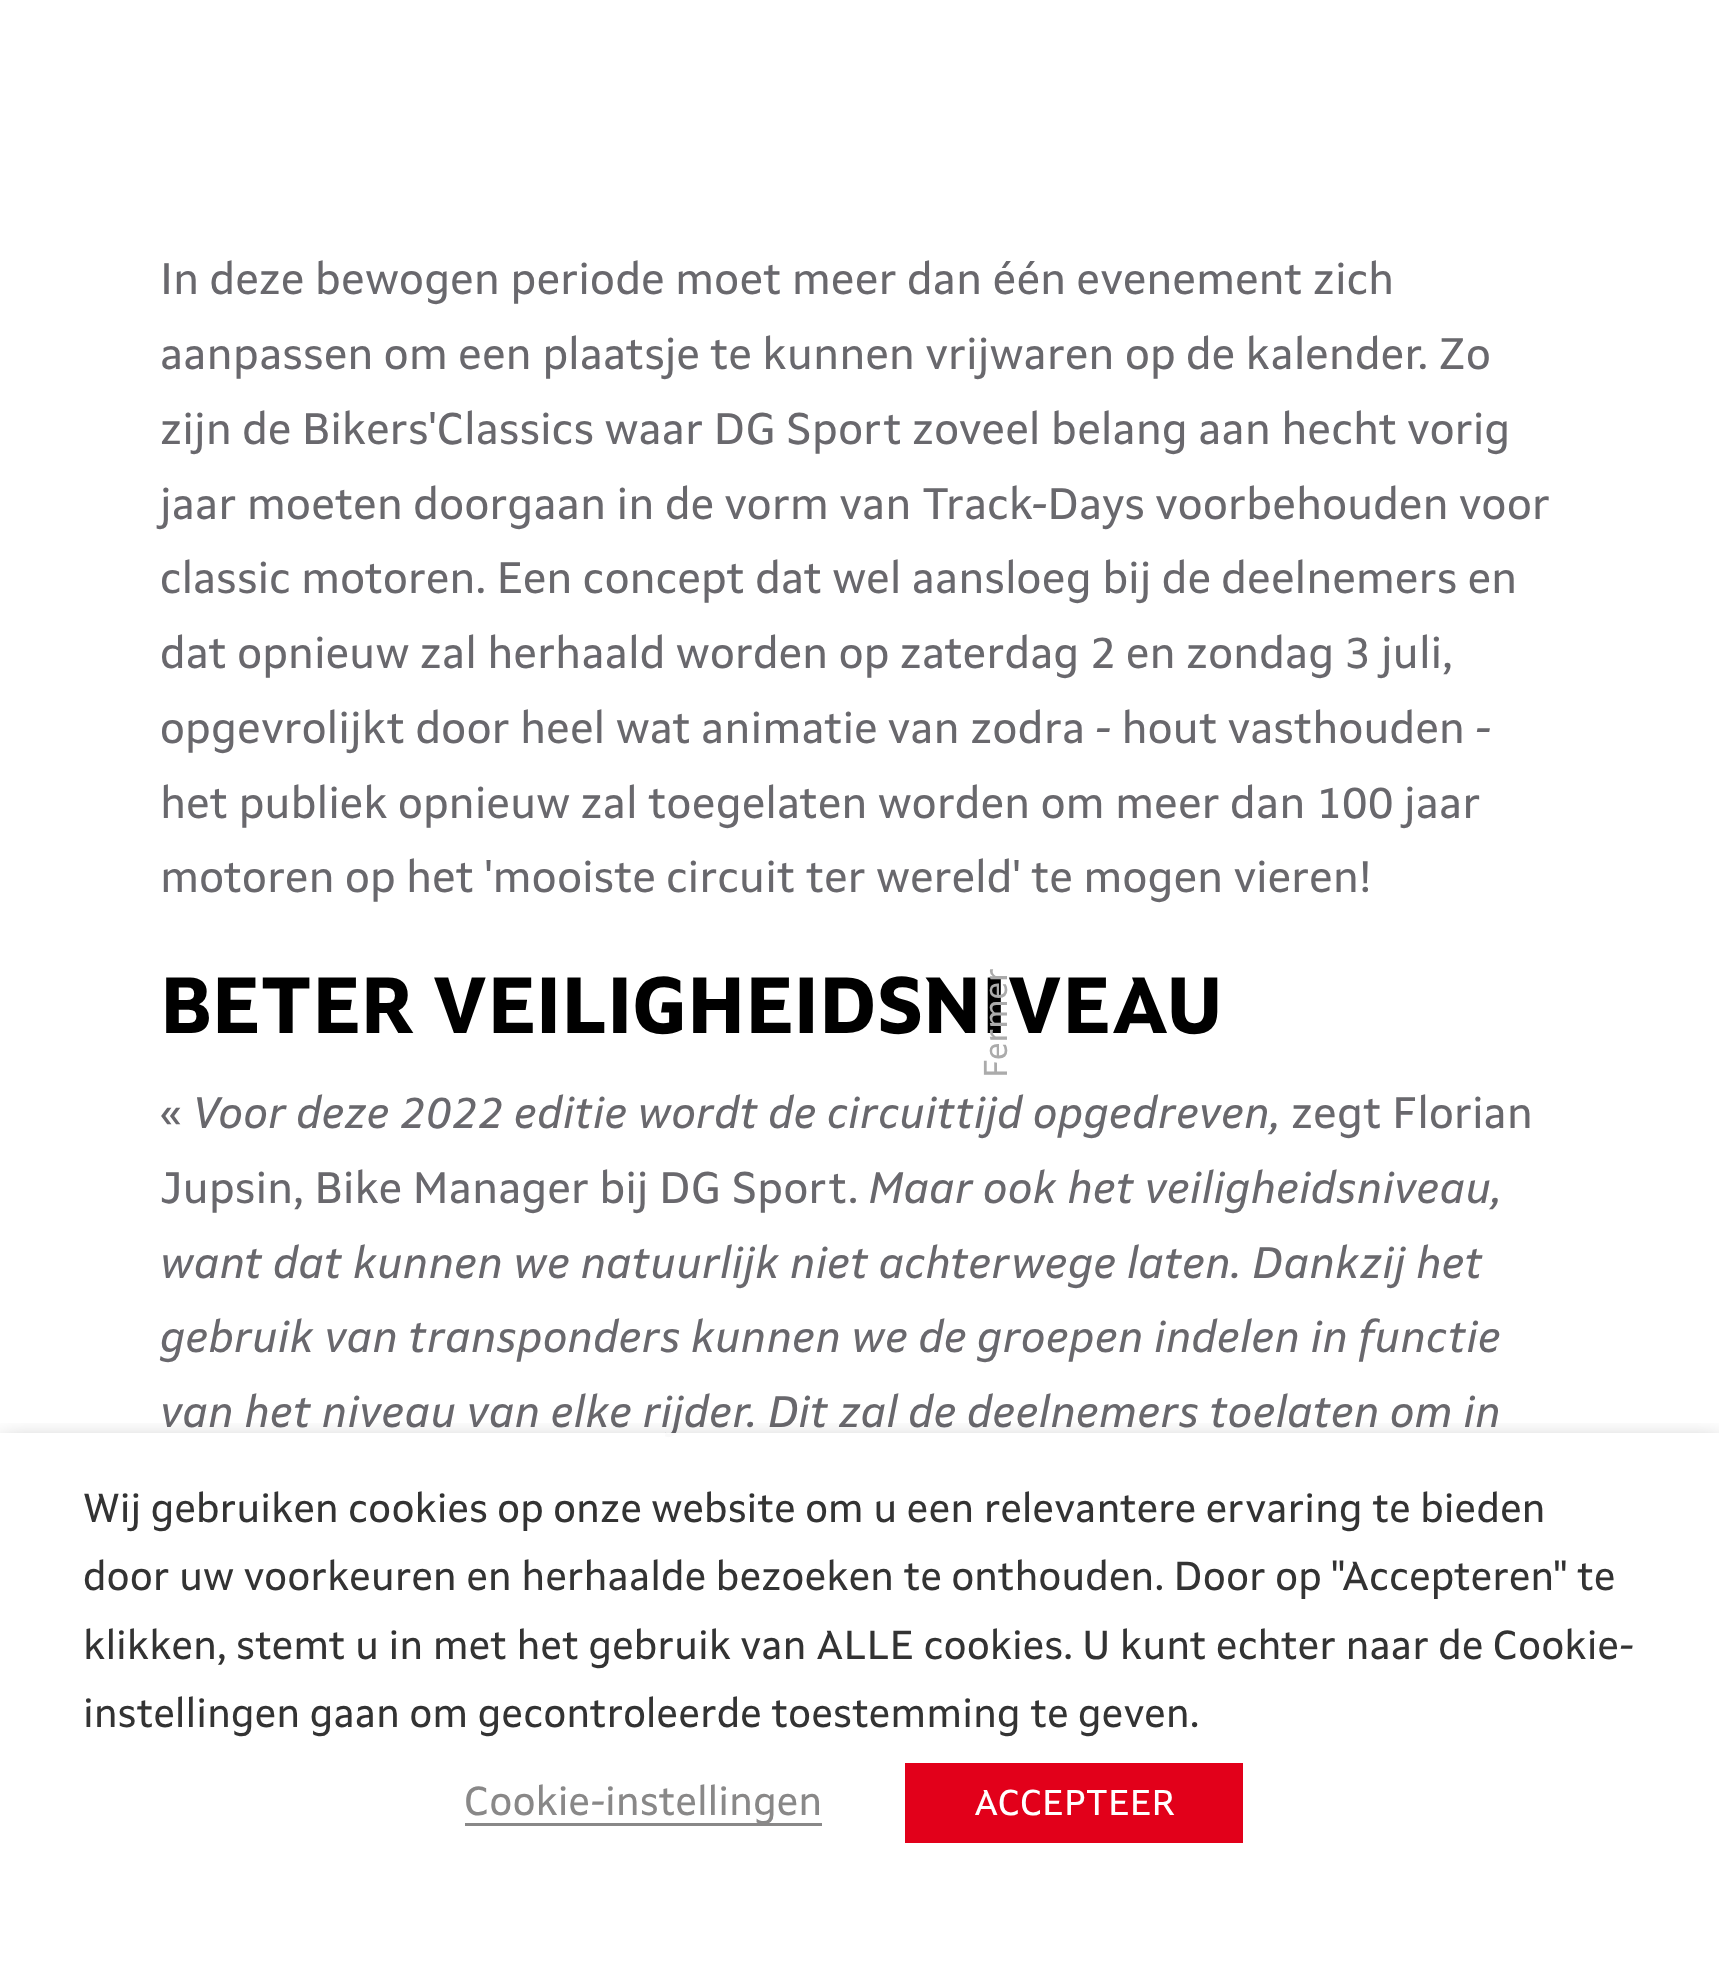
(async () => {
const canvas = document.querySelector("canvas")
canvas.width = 1719
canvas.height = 1961
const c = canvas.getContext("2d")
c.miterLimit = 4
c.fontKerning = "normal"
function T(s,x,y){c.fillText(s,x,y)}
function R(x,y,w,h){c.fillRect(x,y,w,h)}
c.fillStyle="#fff"
R(0,0,1719,1961)
c.font="44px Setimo"
c.fillStyle="#69686d"
T("In deze bewogen periode moet meer dan één evenement zich",160,294)
T("aanpassen om een plaatsje te kunnen vrijwaren op de kalender. Zo",160,369)
T("zijn de Bikers'Classics waar DG Sport zoveel belang aan hecht vorig",160,444)
T("jaar moeten doorgaan in de vorm van Track-Days voorbehouden voor",160,519)
T("classic motoren. Een concept dat wel aansloeg bij de deelnemers en",160,593)
T("dat opnieuw zal herhaald worden op zaterdag 2 en zondag 3 juli,",160,668)
T("opgevrolijkt door heel wat animatie van zodra - hout vasthouden -",160,743)
T("het publiek opnieuw zal toegelaten worden om meer dan 100 jaar",160,818)
T("motoren op het 'mooiste circuit ter wereld' te mogen vieren!",160,892)
c.font="bold 79.25px Setimo"
c.fillStyle="#000"
T("BETER VEILIGHEIDSNIVEAU",160,1033)
c.font="44px Setimo"
c.fillStyle="#69686d"
T("«",160,1128)
c.font="italic 44px Setimo"
T("Voor deze 2022 editie wordt de circuittijd opgedreven,",192,1128)
c.font="44px Setimo"
T("zegt Florian",1291,1128)
T("Jupsin, Bike Manager bij DG Sport.",160,1203)
c.font="italic 44px Setimo"
T("Maar ook het veiligheidsniveau,",868,1203)
T("want dat kunnen we natuurlijk niet achterwege laten. Dankzij het",160,1278)
T("gebruik van transponders kunnen we de groepen indelen in functie",160,1352)
T("van het niveau van elke rijder. Dit zal de deelnemers toelaten om in",160,1427)
c.font="33px Setimo"
c.fillStyle="#ababab"
c.save()
c.translate(1007,1078)
c.rotate(-90 * Math.PI / 180)
c.fillText("Fermer",0,0)
c.restore()
c.save()
c.beginPath()
c.rect(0,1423,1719,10)
c.clip()
c.fillStyle="#00000080"
c.filter="blur(14px)"
c.beginPath()
c.rect(0,1447,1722,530)
c.fill()
c.filter="none"
c.restore()
c.fillStyle="#fffffff7"
R(664,1433,12,5)
c.font="40.35px Setimo"
c.fillStyle="#333"
T("Wij gebruiken cookies op onze website om u een relevantere ervaring te bieden",83,1522)
T("door uw voorkeuren en herhaalde bezoeken te onthouden. Door op \"Accepteren\" te",83,1590)
T("klikken, stemt u in met het gebruik van ALLE cookies. U kunt echter naar de Cookie-",83,1659)
T("instellingen gaan om gecontroleerde toestemming te geven.",83,1727)
c.fillStyle="#898888"
R(465,1823,357,3)
T("Cookie-instellingen",464,1815)
c.fillStyle="#e2001a"
R(905,1763,338,80)
c.font="35.75px Setimo"
c.fillStyle="#fff"
T("ACCEPTEER",974,1815)
})()
